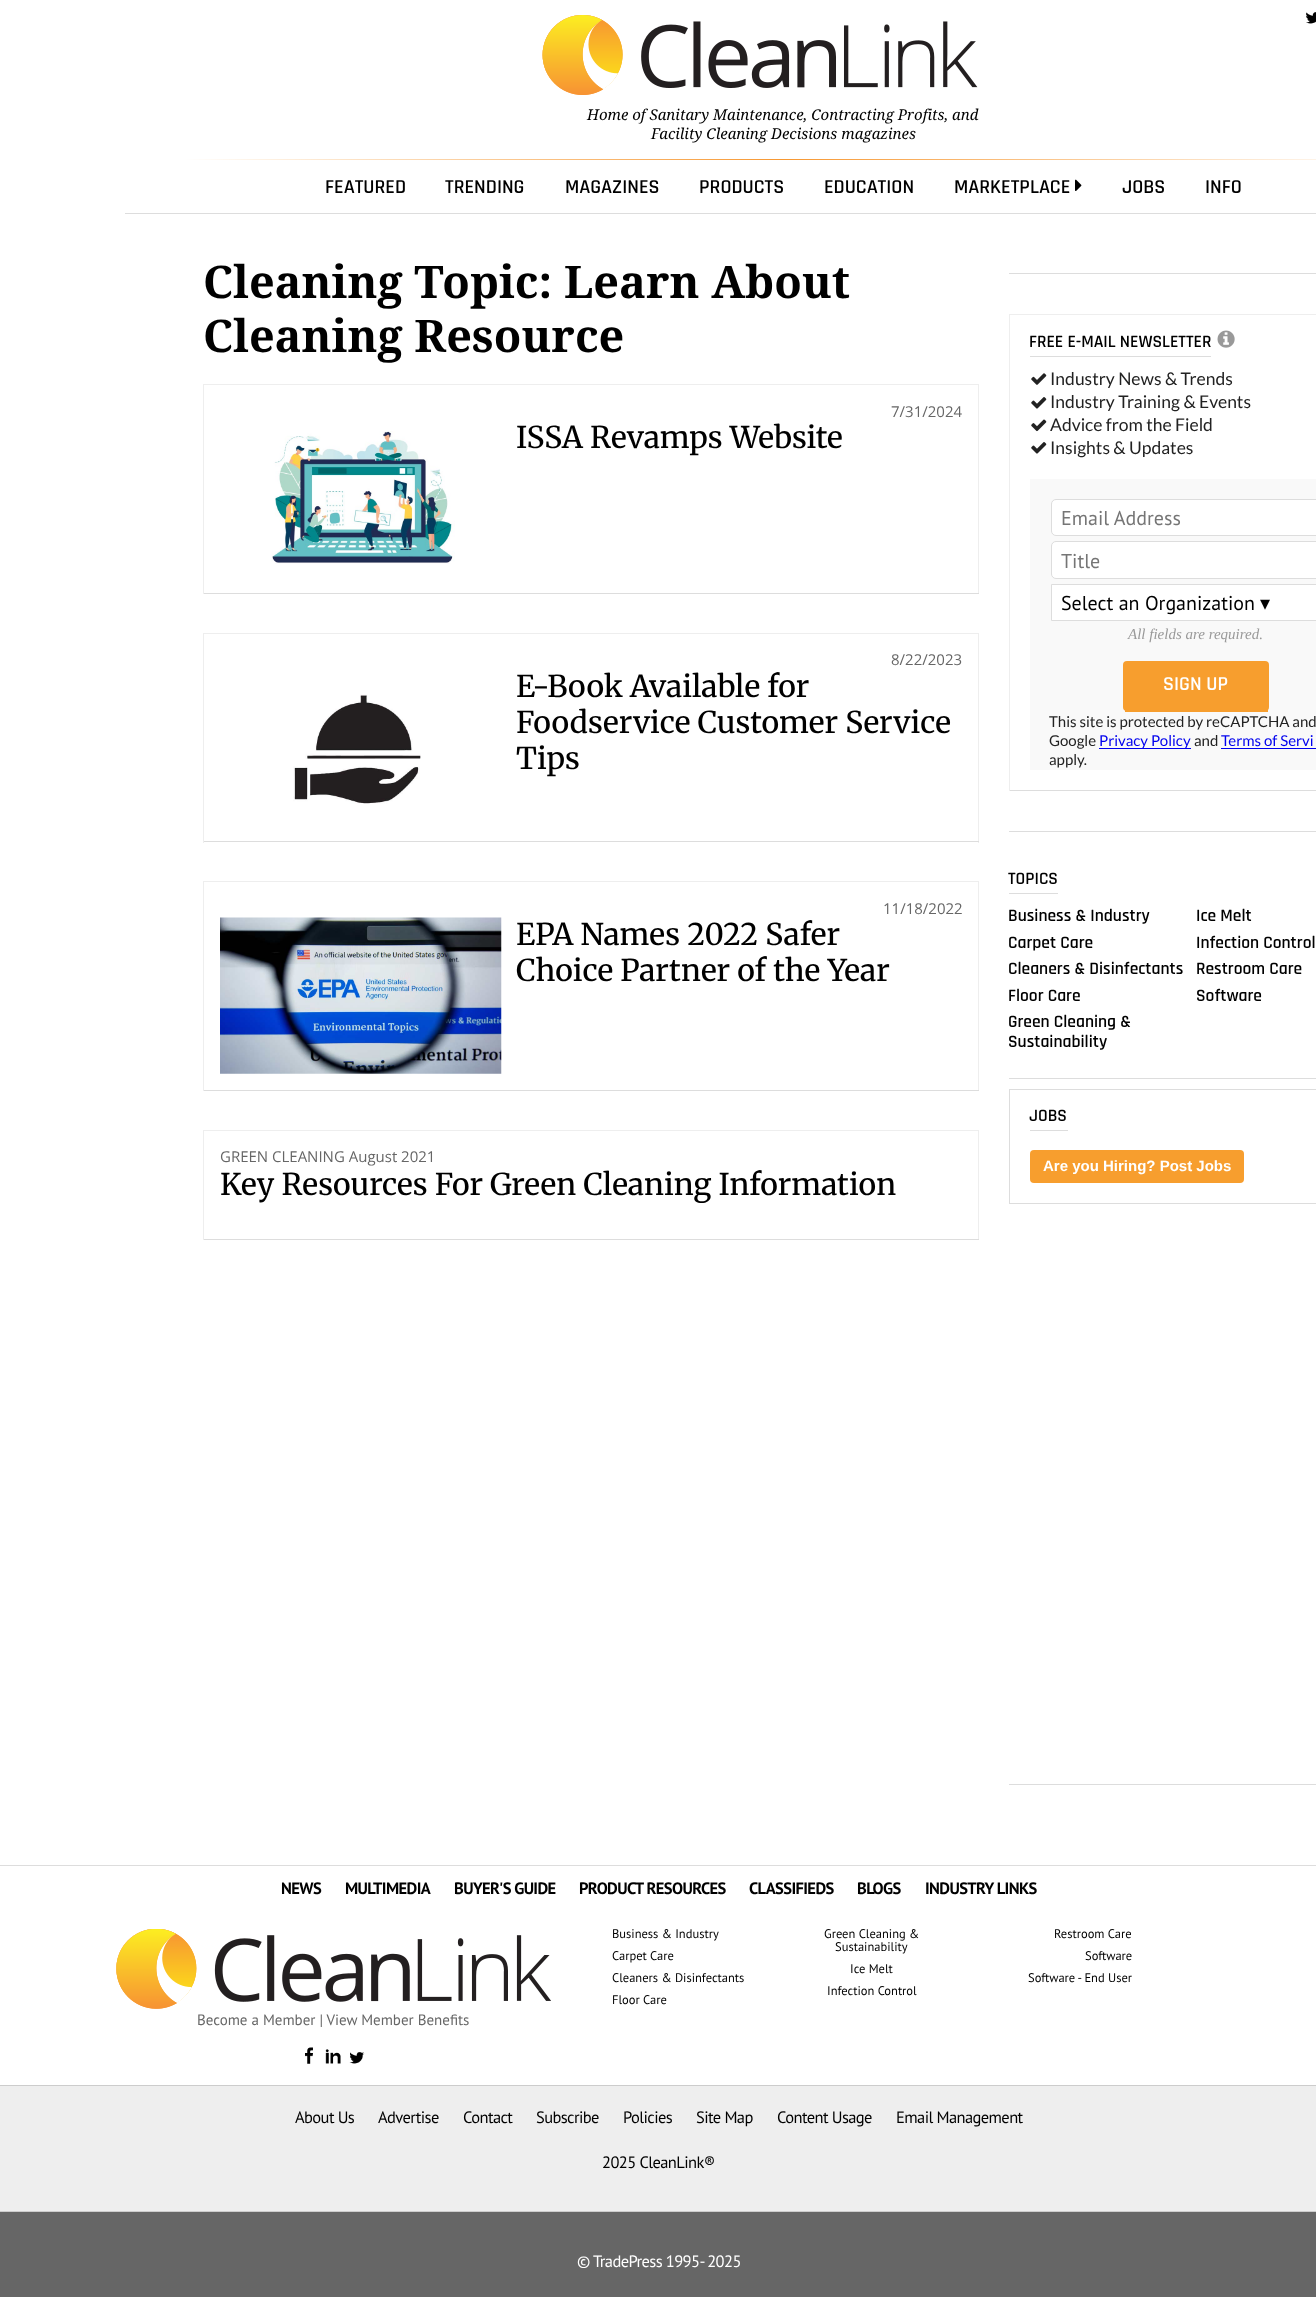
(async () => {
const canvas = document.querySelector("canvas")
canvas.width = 1316
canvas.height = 2297
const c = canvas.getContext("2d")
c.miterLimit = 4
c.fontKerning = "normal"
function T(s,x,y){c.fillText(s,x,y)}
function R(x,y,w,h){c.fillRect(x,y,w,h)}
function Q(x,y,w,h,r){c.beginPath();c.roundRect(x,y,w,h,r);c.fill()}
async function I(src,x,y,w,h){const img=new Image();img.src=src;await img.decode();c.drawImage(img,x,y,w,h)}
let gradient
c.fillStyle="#fff"
R(0,0,1316,2297)
await I("1.png",1306,12,10,12)
await I("2.png",542,15,436,80)
c.font="italic 15px Droid Serif"
c.fillStyle="#000"
T("Home of Sanitary Maintenance, Contracting Profits, and",587,120)
T("Facility Cleaning Decisions magazines",651,139)
gradient = c.createLinearGradient(184,159,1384,159)
gradient.addColorStop(0,"#fff")
gradient.addColorStop(.07,"#fef1e2")
gradient.addColorStop(.5,"#f79832")
gradient.addColorStop(1,"#fff")
c.fillStyle = gradient
R(184,159,1132,1)
c.font="600 20px Rajdhani"
c.fillStyle="#000"
T("FEATURED",325,193)
T("TRENDING",445,193)
T("MAGAZINES",565,193)
T("PRODUCTS",699,193)
T("EDUCATION",824,193)
T("MARKETPLACE",954,193)
await I("3.png",1075,179,7,12)
T("JOBS",1122,193)
T("INFO",1205,193)
c.fillStyle="#ddd"
R(125,213,1191,1)
c.font="bold 45px Droid Serif"
c.fillStyle="#000"
T("Cleaning Topic: Learn About",203,298)
T("Cleaning Resource",203,352)
c.fillStyle="#eee"
R(203,384,776,1)
R(978,384,1,210)
c.fillStyle="#ddd"
R(203,593,776,1)
c.fillStyle="#eee"
R(203,384,1,210)
c.font="15px Open Sans"
c.fillStyle="#666"
T("7/31/2024",891,417)
await I("4.png",271,431,184,133)
c.font="500 30px Merriweather"
c.fillStyle="#000"
T("ISSA Revamps Website",516,448)
c.fillStyle="#eee"
R(203,633,776,1)
R(978,633,1,210)
c.fillStyle="#ddd"
R(203,841,776,1)
c.fillStyle="#eee"
R(203,633,1,210)
c.font="15px Open Sans"
c.fillStyle="#666"
T("8/22/2023",891,665)
c.font="500 30px Merriweather"
c.fillStyle="#000"
T("E-Book Available for",516,697)
await I("5.png",293,694,128,110)
T("Foodservice Customer Service",516,733)
T("Tips",516,769)
c.fillStyle="#eee"
R(203,881,776,1)
R(978,881,1,210)
c.fillStyle="#ddd"
R(203,1090,776,1)
c.fillStyle="#eee"
R(203,881,1,210)
c.font="15px Open Sans"
c.fillStyle="#666"
T("11/18/2022",883,914)
await I("6.png",220,917,282,157)
c.font="500 30px Merriweather"
c.fillStyle="#000"
T("EPA Names 2022 Safer",516,945)
T("Choice Partner of the Year",516,981)
c.fillStyle="#eee"
R(203,1130,776,1)
R(978,1130,1,110)
c.fillStyle="#ddd"
R(203,1239,776,1)
c.fillStyle="#eee"
R(203,1130,1,110)
c.font="15px Open Sans"
c.fillStyle="#666"
T("GREEN CLEANING August 2021",220,1162)
c.font="500 30px Merriweather"
c.fillStyle="#000"
T("Key Resources For Green Cleaning Information",220,1195)
c.fillStyle="#ddd"
R(1009,273,307,1)
c.fillStyle="#eee"
R(1009,314,307,1)
c.fillStyle="#ddd"
R(1009,790,307,1)
c.fillStyle="#eee"
R(1009,314,1,477)
c.fillStyle="#ddd"
R(1030,356,181,1)
c.font="600 17.5px Rajdhani"
c.fillStyle="#000"
T("FREE E-MAIL NEWSLETTER",1029,347)
await I("7.png",1217,330,18,18)
await I("8.png",1031,373,16,12)
c.font="17.5px Lato"
c.fillStyle="#222"
T("Industry News & Trends",1050,385)
await I("9.png",1031,397,16,12)
T("Industry Training & Events",1050,408)
await I("10.png",1031,419,16,13)
T("Advice from the Field",1050,431)
await I("9.png",1031,442,16,12)
T("Insights & Updates",1050,454)
c.fillStyle="#f9f9f9"
R(1030,479,286,291)
c.fillStyle="#fff"
c.beginPath()
c.roundRect(1051.5,499.5,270,36,4.5)
c.fill()
c.strokeStyle="#ddd"
c.stroke()
c.font="20px PT Sans"
c.fillStyle="#757575"
T("Email Address",1061,525)
c.fillStyle="#fff"
c.beginPath()
c.roundRect(1051.5,541.5,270,37,4.5)
c.fill()
c.stroke()
c.fillStyle="#757575"
T("Title",1061,568)
c.fillStyle="#fff"
c.beginPath()
c.rect(1051.5,584.5,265,36)
c.fill()
c.stroke()
c.fillStyle="#000"
T("Select an Organization",1061,610)
c.font="20px DejaVu Sans"
T("▾",1260,610)
c.font="italic 15px Liberation Serif"
c.fillStyle="#999"
T("All fields are required.",1128,639)
c.fillStyle="#f79e2e"
Q(1123,661,146,50,4)
R(1125,709,143,3)
c.font="600 20px Rajdhani"
c.fillStyle="#fff"
T("SIGN UP",1163,690)
c.font="15px Lato"
c.fillStyle="#222"
T("This site is protected by reCAPTCHA and",1049,727)
T("Google",1049,746)
c.fillStyle="#00e"
R(1099,748,92,1)
T("Privacy Policy",1099,746)
c.fillStyle="#222"
T("and",1194,746)
c.fillStyle="#00e"
T("Terms of Servi",1221,746)
R(1221,748,95,1)
c.fillStyle="#222"
T("apply.",1049,765)
c.fillStyle="#ddd"
R(1009,831,307,1)
R(1009,893,49,1)
c.font="600 17.5px Rajdhani"
c.fillStyle="#000"
T("TOPICS",1008,884)
T("Business & Industry",1008,921)
T("Carpet Care",1008,948)
T("Cleaners & Disinfectants",1008,974)
T("Floor Care",1008,1001)
T("Green Cleaning &",1008,1027)
T("Sustainability",1008,1047)
T("Ice Melt",1196,921)
T("Infection Control",1196,948)
T("Restroom Care",1196,974)
T("Software",1196,1001)
c.fillStyle="#ddd"
R(1009,1078,307,1)
c.strokeRect(1009.5,1089.5,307,114)
R(1030,1130,38,1)
c.fillStyle="#000"
T("JOBS",1029,1121)
c.fillStyle="#f79e2e"
Q(1030,1150,214,33,4)
c.font="bold 15px Liberation Sans"
c.fillStyle="#fff"
T("Are you Hiring? Post Jobs",1043,1171)
c.fillStyle="#ddd"
R(1009,1784,307,1)
R(0,1865,1316,1)
c.letterSpacing="-0.6px"
c.font="bold 16.5px PT Sans"
c.fillStyle="#000"
T("NEWS",281,1894)
T("MULTIMEDIA",345,1894)
T("BUYER'S GUIDE",454,1894)
T("PRODUCT RESOURCES",579,1894)
T("CLASSIFIEDS",749,1894)
T("BLOGS",857,1894)
T("INDUSTRY LINKS",925,1894)
c.letterSpacing="0px"
c.font="12.5px PT Sans"
T("Business & Industry",612,1938)
T("Carpet Care",612,1960)
T("Cleaners & Disinfectants",612,1982)
T("Floor Care",612,2004)
T("Green Cleaning &",824,1938)
T("Sustainability",835,1951)
T("Ice Melt",850,1973)
T("Infection Control",827,1995)
T("Restroom Care",1054,1938)
T("Software",1085,1960)
T("Software - End User",1028,1982)
await I("11.png",116,1929,435,80)
c.font="15px PT Sans"
c.fillStyle="#666"
T("Become a Member | View Member Benefits",197,2025)
await I("12.png",305,2047,8,17)
await I("13.png",325,2049,16,15)
await I("14.png",349,2052,16,12)
c.fillStyle="#eee"
R(0,2086,1316,125)
c.fillStyle="#ccc"
R(0,2085,1316,1)
c.letterSpacing="-0.6px"
c.font="16.5px PT Sans"
c.fillStyle="#000"
T("About Us",295,2123)
T("Advertise",378,2123)
T("Contact",463,2123)
T("Subscribe",536,2123)
T("Policies",623,2123)
T("Site Map",696,2123)
T("Content Usage",777,2123)
T("Email Management",896,2123)
T("2025 CleanLink®",602,2168)
c.fillStyle="#666"
R(0,2212,1316,85)
c.fillStyle="#ccc"
R(0,2211,1316,1)
c.fillStyle="#fff"
T("© TradePress 1995- 2025",577,2267)
})()
